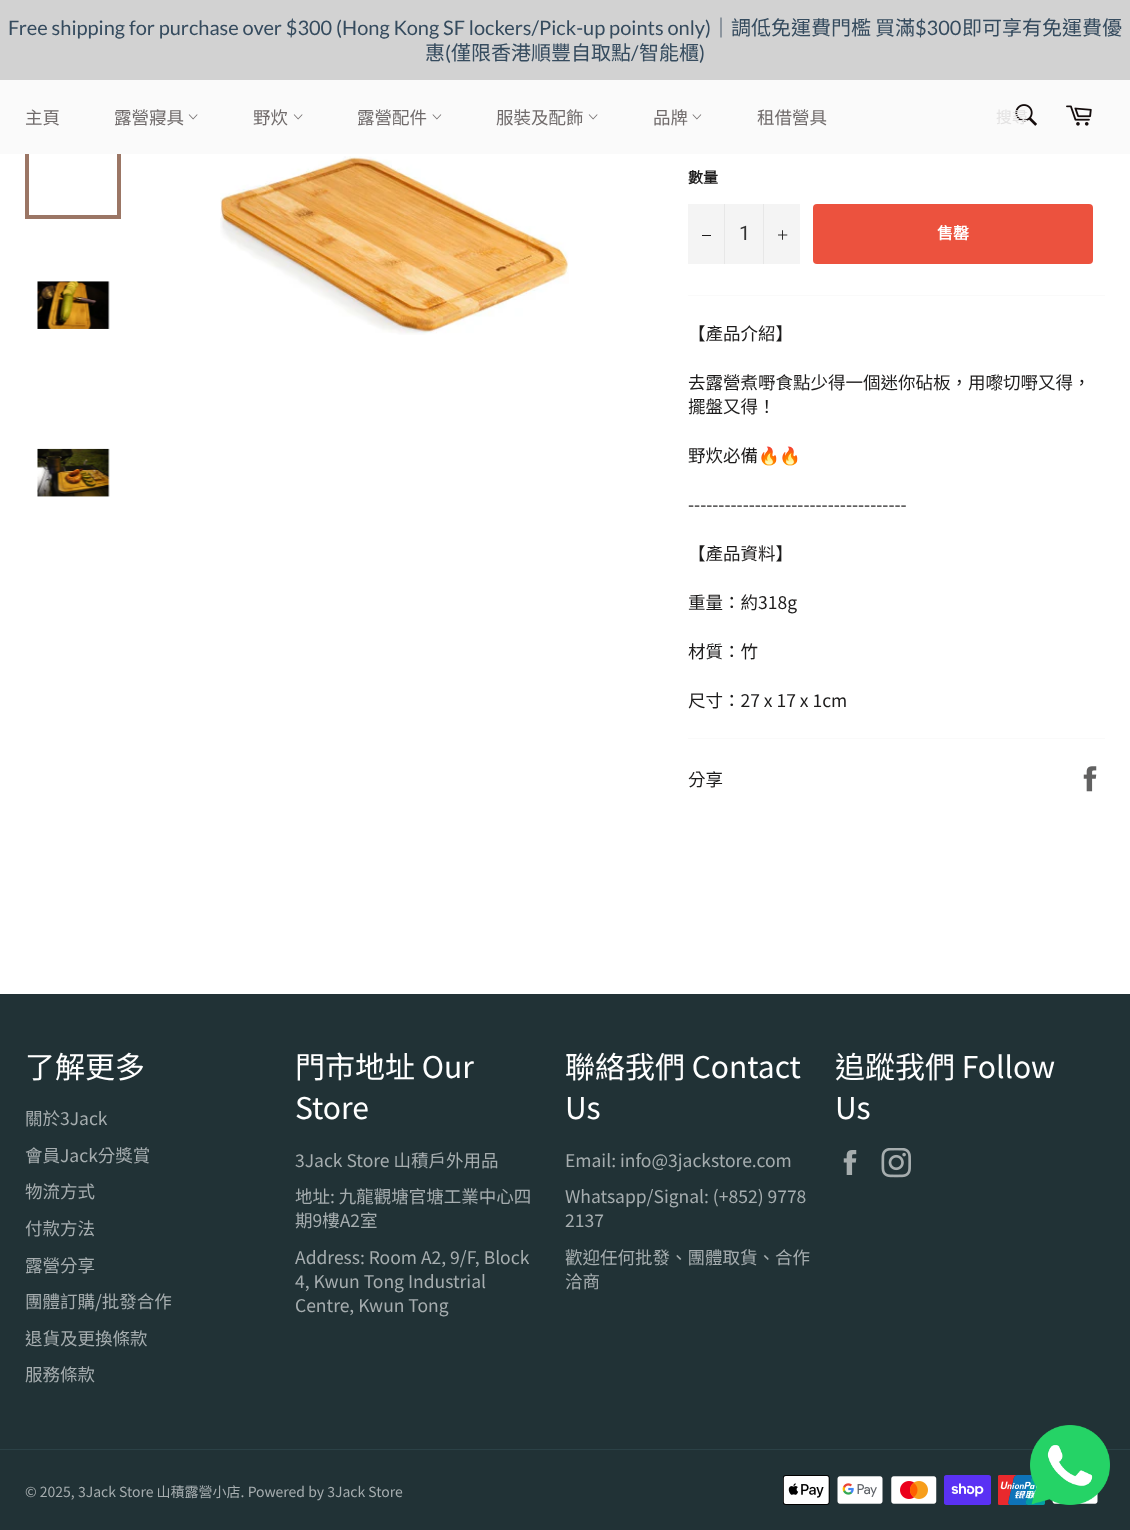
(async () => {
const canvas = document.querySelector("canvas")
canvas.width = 1130
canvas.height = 1530
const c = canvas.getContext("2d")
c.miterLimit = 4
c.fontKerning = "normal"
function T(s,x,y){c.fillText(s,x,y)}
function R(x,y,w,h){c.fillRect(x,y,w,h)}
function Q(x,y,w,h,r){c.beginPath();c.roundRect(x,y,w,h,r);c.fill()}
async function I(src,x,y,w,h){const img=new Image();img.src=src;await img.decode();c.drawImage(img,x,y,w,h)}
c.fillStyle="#fff"
R(0,0,1130,1530)
c.strokeStyle="#9b7665"
c.lineWidth=4
c.strokeRect(27,58,92,159)
c.fillStyle="#d2d2d2"
R(0,0,1130,80)
c.font="20px Lato"
c.fillStyle="#354b5e"
T("Free shipping for purchase over $300 (Hong Kong SF lockers/Pick-up points only)",8,35)
c.font="20px Noto Sans CJK TC"
T("｜調低免運費門檻",711,35)
T("買滿",875,35)
c.font="20px Lato"
T("$300",915,35)
c.font="20px Noto Sans CJK TC"
T("即可享有免運費優",962,35)
T("惠",425,60)
c.font="20px Lato"
T("(",445,60)
c.font="20px Noto Sans CJK TC"
T("僅限香港順豐自取點",451,60)
c.font="20px Lato"
T("/",631,60)
c.font="20px Noto Sans CJK TC"
T("智能櫃",639,60)
c.font="20px Lato"
T(")",699,60)
c.fillStyle="#fafafa"
R(0,80,1130,74)
c.font="100 17.5px Noto Sans TC"
c.fillStyle="#706b6b"
T("主頁",25,124)
T("露營寢具",114,124)
await I("1.png",188,114,10,6)
T("野炊",253,124)
await I("1.png",293,114,10,6)
T("露營配件",357,124)
await I("2.png",432,114,10,6)
T("服裝及配飾",496,124)
await I("1.png",588,114,10,6)
T("品牌",653,124)
await I("2.png",692,114,10,6)
T("租借營具",757,124)
await I("3.png",1015,104,22,22)
c.font="16px Noto Sans CJK TC"
c.fillStyle="#e3e2e2"
T("搜尋",996,123)
await I("4.png",1066,105,26,21)
await I("5.png",37,281,73,48)
await I("6.png",37,448,73,49)
await I("7.png",220,156,349,179)
c.font="bold 15px Noto Sans TC"
c.fillStyle="#1d1c1c"
T("數量",688,183)
c.fillStyle="#f4f4f4"
R(688,204,112,60)
c.fillStyle="#e7e7e7"
R(724,204,1,60)
c.fillStyle="#1d1c1c"
R(702,235,9,1)
c.font="20px Roboto"
c.fillStyle="#333"
T("1",739,240)
c.fillStyle="#e7e7e7"
R(763,204,1,60)
await I("8.png",778,230,10,10)
c.fillStyle="#ec523e"
Q(813,204,280,60,4)
c.font="bold 16px Noto Sans CJK TC"
c.fillStyle="#fff"
T("售罄",937,239)
c.fillStyle="#fafafa"
R(688,295,417,1)
c.font="100 17.5px Noto Sans TC"
c.fillStyle="#1d1c1c"
T("【產品介紹】",688,340)
T("去露營煮嘢食點少得一個迷你砧板，用嚟切嘢又得，",688,389)
T("擺盤又得！",688,413)
T("野炊必備",688,462)
c.font="17.5px Noto Color Emoji"
T("🔥🔥",758,462)
c.font="100 17.5px Noto Sans TC"
T("------------------------------------",688,511)
T("【產品資料】",688,560)
T("重量：約318g",688,609)
T("材質：竹",688,658)
T("尺寸：27 x 17 x 1cm",688,707)
c.fillStyle="#fafafa"
R(688,738,417,1)
c.fillStyle="#1d1c1c"
T("分享",688,786)
await I("9.png",1083,766,14,26)
c.fillStyle="#213236"
R(0,994,1130,536)
c.font="100 30px Noto Sans TC"
c.fillStyle="#fff"
T("了解更多",25,1078)
c.font="100 17.5px Noto Sans TC"
c.fillStyle="#a6adaf"
T("關於3Jack",25,1125)
T("會員Jack分獎賞",25,1162)
T("物流方式",25,1198)
T("付款方法",25,1235)
T("露營分享",25,1272)
T("團體訂購/批發合作",25,1308)
T("退貨及更換條款",25,1345)
T("服務條款",25,1381)
c.font="100 30px Noto Sans TC"
c.fillStyle="#fff"
T("門市地址 Our",295,1078)
T("Store",295,1119)
c.font="100 17.5px Noto Sans TC"
c.fillStyle="#a6adaf"
T("3Jack Store 山積戶外用品",295,1167)
T("地址: 九龍觀塘官塘工業中心四",295,1203)
T("期9樓A2室",295,1227)
T("Address: Room A2, 9/F, Block",295,1264)
T("4, Kwun Tong Industrial",295,1288)
T("Centre, Kwun Tong",295,1312)
c.font="100 30px Noto Sans TC"
c.fillStyle="#fff"
T("聯絡我們 Contact",565,1078)
T("Us",565,1119)
c.font="100 17.5px Noto Sans TC"
c.fillStyle="#a6adaf"
T("Email: info@3jackstore.com",565,1167)
T("Whatsapp/Signal: (+852) 9778",565,1203)
T("2137",565,1227)
T("歡迎任何批發、團體取貨、合作",565,1264)
T("洽商",565,1288)
c.font="100 30px Noto Sans TC"
c.fillStyle="#fff"
T("追蹤我們 Follow",835,1078)
T("Us",835,1119)
await I("10.png",843,1150,14,25)
await I("11.png",881,1148,30,30)
c.fillStyle="#2b4146"
R(0,1449,1130,1)
c.font="100 14px Noto Sans TC"
c.fillStyle="#a6adaf"
T("© 2025, 3Jack Store 山積露營小店. Powered by 3Jack Store",25,1497)
await I("12.png",783,1475,47,30)
await I("13.png",837,1476,46,28)
await I("14.png",891,1476,46,28)
await I("15.png",944,1475,47,30)
await I("16.png",998,1475,47,30)
await I("17.png",1052,1493,46,11)
await I("18.png",1030,1425,80,80)
})()
